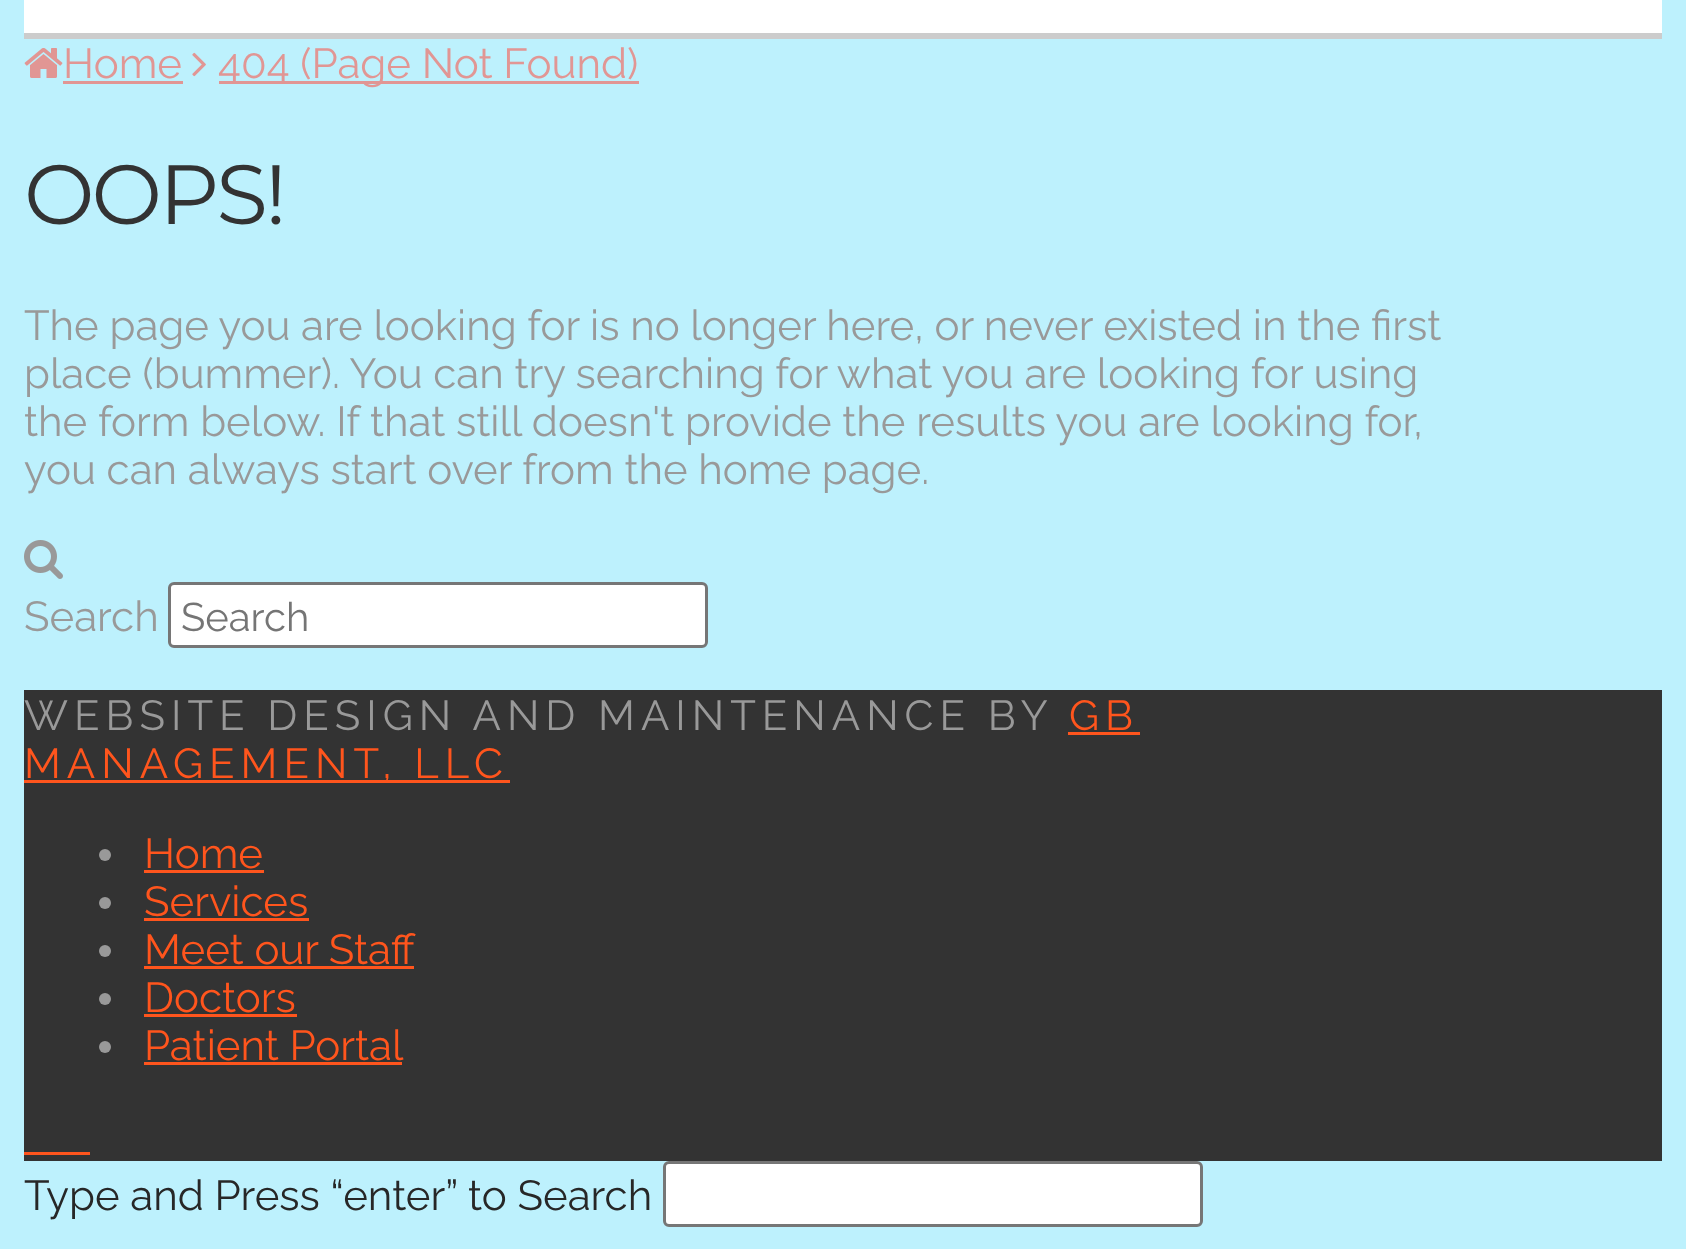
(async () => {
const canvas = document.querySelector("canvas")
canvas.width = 1686
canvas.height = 1249
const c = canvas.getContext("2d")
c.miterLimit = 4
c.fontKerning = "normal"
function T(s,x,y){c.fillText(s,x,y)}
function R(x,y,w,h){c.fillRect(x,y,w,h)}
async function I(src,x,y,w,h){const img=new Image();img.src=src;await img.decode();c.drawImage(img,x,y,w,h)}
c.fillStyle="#bdf1fd"
R(0,0,1686,1249)
c.fillStyle="#fff"
R(24,0,1638,33)
c.fillStyle="#ccc"
R(24,33,1638,6)
await I("1.png",24,48,39,30)
c.font="42px Raleway"
c.fillStyle="#e19694"
T("Home",63,78)
R(63,81,120,3)
await I("2.png",192,52,14,25)
R(219,81,420,3)
T("404 (Page Not Found)",218,78)
c.letterSpacing="-3px"
c.font="100 84px Montserrat"
c.fillStyle="#333"
T("OOPS!",24,224)
c.letterSpacing="0px"
c.font="42px Raleway"
c.fillStyle="#999"
T("The page you are looking for is no longer here, or never existed in the first",24,340)
T("place (bummer). You can try searching for what you are looking for using",24,388)
T("the form below. If that still doesn't provide the results you are looking for,",24,436)
T("you can always start over from the home page.",24,484)
await I("3.png",24,540,39,39)
T("Search",24,631)
c.fillStyle="#fff"
c.beginPath()
c.roundRect(169.5,583.5,537,63,4.5)
c.fill()
c.strokeStyle="#767676"
c.lineWidth=3
c.stroke()
c.font="40px Raleway"
c.fillStyle="#757575"
T("Search",181,631)
c.fillStyle="#333"
R(24,690,1638,471)
c.letterSpacing="6px"
c.font="42px Raleway"
c.fillStyle="#999"
T("WEBSITE DESIGN AND MAINTENANCE BY",24,730)
c.fillStyle="#ff551d"
T("GB",1069,730)
R(1068,732,72,3)
R(24,780,486,3)
T("MANAGEMENT, LLC",24,778)
c.fillStyle="#999"
c.beginPath()
c.arc(105,855,6,0,7)
c.fill()
c.letterSpacing="0px"
c.fillStyle="#ff551d"
T("Home",144,868)
R(144,870,120,3)
c.fillStyle="#999"
c.beginPath()
c.arc(105,903,6,0,7)
c.fill()
c.fillStyle="#ff551d"
T("Services",144,916)
R(144,918,165,3)
c.fillStyle="#999"
c.beginPath()
c.arc(105,951,6,0,7)
c.fill()
c.fillStyle="#ff551d"
T("Meet our Staff",144,964)
R(144,966,270,3)
c.fillStyle="#999"
c.beginPath()
c.arc(105,999,6,0,7)
c.fill()
c.fillStyle="#ff551d"
T("Doctors",144,1012)
R(144,1014,153,3)
c.fillStyle="#999"
c.beginPath()
c.arc(105,1047,6,0,7)
c.fill()
c.fillStyle="#ff551d"
T("Patient Portal",144,1060)
R(144,1062,258,3)
R(24,1152,66,3)
c.fillStyle="#272727"
T("Type and Press “enter” to Search",24,1210)
c.fillStyle="#fff"
c.beginPath()
c.roundRect(664.5,1162.5,537,63,4.5)
c.fill()
c.stroke()
})()
